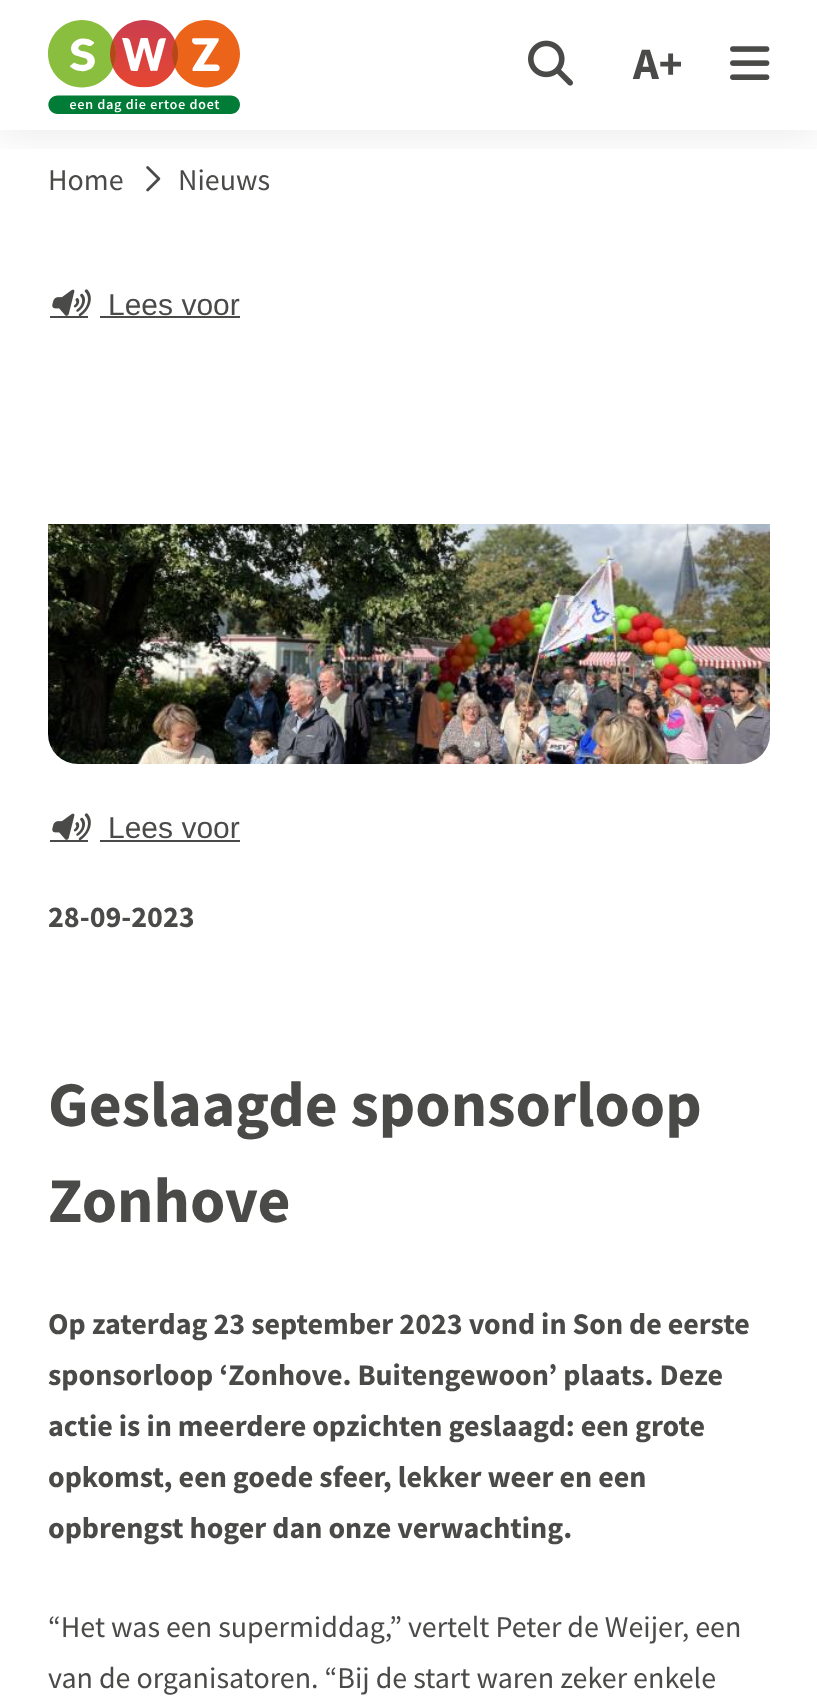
(async () => {
const canvas = document.querySelector("canvas")
canvas.width = 817
canvas.height = 1703
const c = canvas.getContext("2d")
c.miterLimit = 4
c.fontKerning = "normal"
function T(s,x,y){c.fillText(s,x,y)}
function R(x,y,w,h){c.fillRect(x,y,w,h)}
async function I(src,x,y,w,h){const img=new Image();img.src=src;await img.decode();c.drawImage(img,x,y,w,h)}
c.fillStyle="#fff"
R(0,0,817,1703)
await I("4.png",146,166,15,26)
c.save()
c.beginPath()
c.rect(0,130,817,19)
c.clip()
c.fillStyle="#00000014"
c.filter="blur(20px)"
c.beginPath()
c.rect(0,6,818,130)
c.fill()
c.filter="none"
c.restore()
await I("1.png",48,20,192,94)
await I("2.png",528,40,45,46)
c.font="bold 45px Source Sans Pro"
c.fillStyle="#4a4a49"
T("A+",633,79)
await I("3.png",730,46,40,34)
c.font="30px Source Sans Pro"
T("Home",48,190)
T("Nieuws",178,190)
await I("5.png",52,289,39,27)
c.font="30px Liberation Sans"
T("Lees voor",108,315)
R(50,316,38,2)
R(100,316,140,2)
await I("6.png",48,524,722,240)
await I("5.png",52,813,39,27)
T("Lees voor",108,838)
R(50,840,38,2)
R(100,840,140,2)
c.font="bold 30px Source Sans Pro"
T("28-09-2023",48,927)
c.font="bold 63.75px Source Sans Pro"
T("Geslaagde sponsorloop",48,1126)
T("Zonhove",48,1222)
c.font="bold 30px Source Sans Pro"
T("Op zaterdag 23 september 2023 vond in Son de eerste",48,1334)
T("sponsorloop ‘Zonhove. Buitengewoon’ plaats. Deze",48,1385)
T("actie is in meerdere opzichten geslaagd: een grote",48,1436)
T("opkomst, een goede sfeer, lekker weer en een",48,1487)
T("opbrengst hoger dan onze verwachting.",48,1538)
c.font="30px Source Sans Pro"
T("“Het was een supermiddag,” vertelt Peter de Weijer, een",48,1637)
T("van de organisatoren. “Bij de start waren zeker enkele",48,1688)
})()
